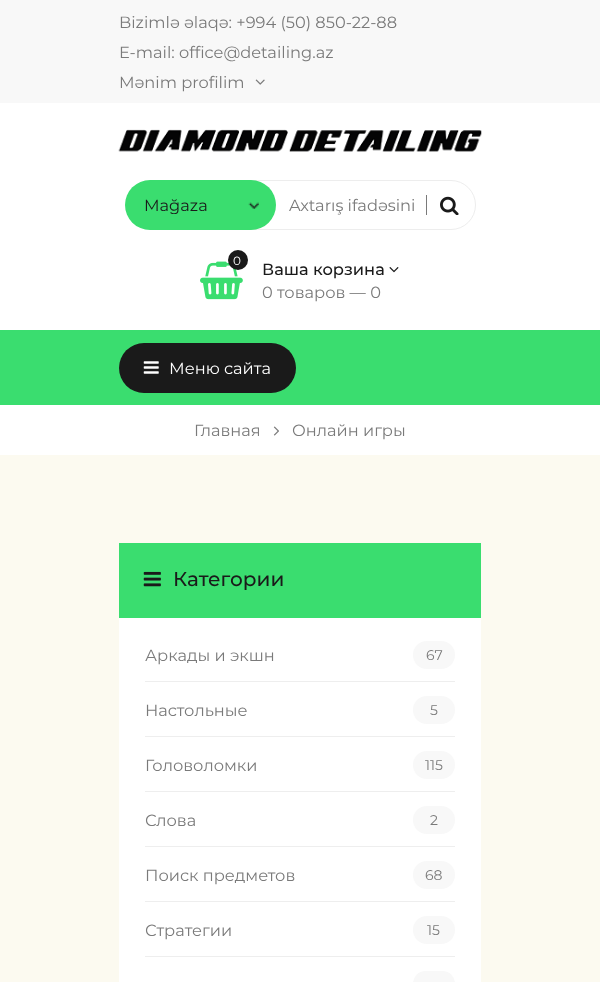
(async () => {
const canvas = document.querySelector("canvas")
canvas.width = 600
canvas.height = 982
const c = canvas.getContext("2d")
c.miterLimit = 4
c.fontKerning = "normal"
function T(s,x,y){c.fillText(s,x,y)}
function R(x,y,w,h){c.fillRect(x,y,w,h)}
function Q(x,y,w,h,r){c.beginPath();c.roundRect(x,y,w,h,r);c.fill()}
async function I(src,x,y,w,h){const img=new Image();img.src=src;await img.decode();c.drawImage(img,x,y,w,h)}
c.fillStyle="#fff"
R(0,0,600,982)
c.fillStyle="#f8f8f8"
R(0,0,600,103)
c.font="16.25px Montserrat"
c.fillStyle="#7a7a7a"
T("Bizimlə əlaqə: +994 (50) 850-22-88",119,28)
T("E-mail: office@detailing.az",119,58)
T("Mənim profilim",119,88)
await I("1.png",255,79,10,6)
await I("2.png",118,129,364,23)
c.beginPath()
c.roundRect(251.5,180.5,224,49,[0,24.5,24.5,0])
c.strokeStyle="#ededed"
c.stroke()
c.fillStyle="#3add6f"
Q(125,180,151,50,25)
await I("3.png",248,202,11,7)
c.save()
c.beginPath()
c.rect(144,198,89,16)
c.clip()
c.fillStyle="#1a1a1a"
T("Mağaza",144,211)
c.restore()
c.save()
c.beginPath()
c.roundRect(253,181,162,48,24)
c.clip()
c.fillStyle="#7a7a7a"
T("Axtarış ifadəsini",289,211)
c.restore()
c.fillStyle="#7a7a7a"
R(426,195,1,20)
await I("4.png",440,196,19,19)
await I("5.png",200,261,43,39)
c.fillStyle="#1a1a1a"
c.beginPath()
c.arc(238,260,10,0,7)
c.fill()
c.font="12px Montserrat"
c.fillStyle="#fff"
T("0",233,265)
c.font="500 16.25px Montserrat"
c.fillStyle="#1a1a1a"
T("Ваша корзина",262,275)
await I("6.png",389,267,10,6)
c.font="16.25px Montserrat"
c.fillStyle="#7a7a7a"
T("0 товаров — 0",262,298)
c.fillStyle="#3add6f"
R(0,330,600,75)
c.fillStyle="#1a1a1a"
Q(119,343,177,50,25)
await I("7.png",143,361,16,13)
c.fillStyle="#fff"
T("Меню сайта",169,374)
c.fillStyle="#7a7a7a"
T("Главная",194,436)
await I("8.png",273,426,6,10)
T("Онлайн игры",292,436)
c.fillStyle="#fcfaf0"
R(0,455,600,527)
c.fillStyle="#fff"
R(119,618,362,364)
c.fillStyle="#3add6f"
R(119,543,362,75)
await I("9.png",143,571,18,16)
c.font="500 20px Montserrat"
c.fillStyle="#1a1a1a"
T("Категории",173,586)
c.fillStyle="#eee"
R(145,681,310,1)
c.font="16.25px Montserrat"
c.fillStyle="#7a7a7a"
T("Аркады и экшн",145,661)
c.fillStyle="#f8f8f8"
Q(413,641,42,28,14)
c.font="14px Montserrat"
c.fillStyle="#7a7a7a"
T("67",426,660)
c.fillStyle="#eee"
R(145,736,310,1)
c.font="16.25px Montserrat"
c.fillStyle="#7a7a7a"
T("Настольные",145,716)
c.fillStyle="#f8f8f8"
Q(413,696,42,28,14)
c.font="14px Montserrat"
c.fillStyle="#7a7a7a"
T("5",430,715)
c.fillStyle="#eee"
R(145,791,310,1)
c.font="16.25px Montserrat"
c.fillStyle="#7a7a7a"
T("Головоломки",145,771)
c.fillStyle="#f8f8f8"
Q(413,751,42,28,14)
c.font="14px Montserrat"
c.fillStyle="#7a7a7a"
T("115",425,770)
c.fillStyle="#eee"
R(145,846,310,1)
c.font="16.25px Montserrat"
c.fillStyle="#7a7a7a"
T("Слова",145,826)
c.fillStyle="#f8f8f8"
Q(413,806,42,28,14)
c.font="14px Montserrat"
c.fillStyle="#7a7a7a"
T("2",430,825)
c.fillStyle="#eee"
R(145,901,310,1)
c.font="16.25px Montserrat"
c.fillStyle="#7a7a7a"
T("Поиск предметов",145,881)
c.fillStyle="#f8f8f8"
Q(413,861,42,28,14)
c.font="14px Montserrat"
c.fillStyle="#7a7a7a"
T("68",425,880)
c.fillStyle="#eee"
R(145,956,310,1)
c.font="16.25px Montserrat"
c.fillStyle="#7a7a7a"
T("Стратегии",145,936)
c.fillStyle="#f8f8f8"
Q(413,916,42,28,14)
c.font="14px Montserrat"
c.fillStyle="#7a7a7a"
T("15",427,935)
c.fillStyle="#f8f8f8"
Q(413,971,42,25,14)
})()
